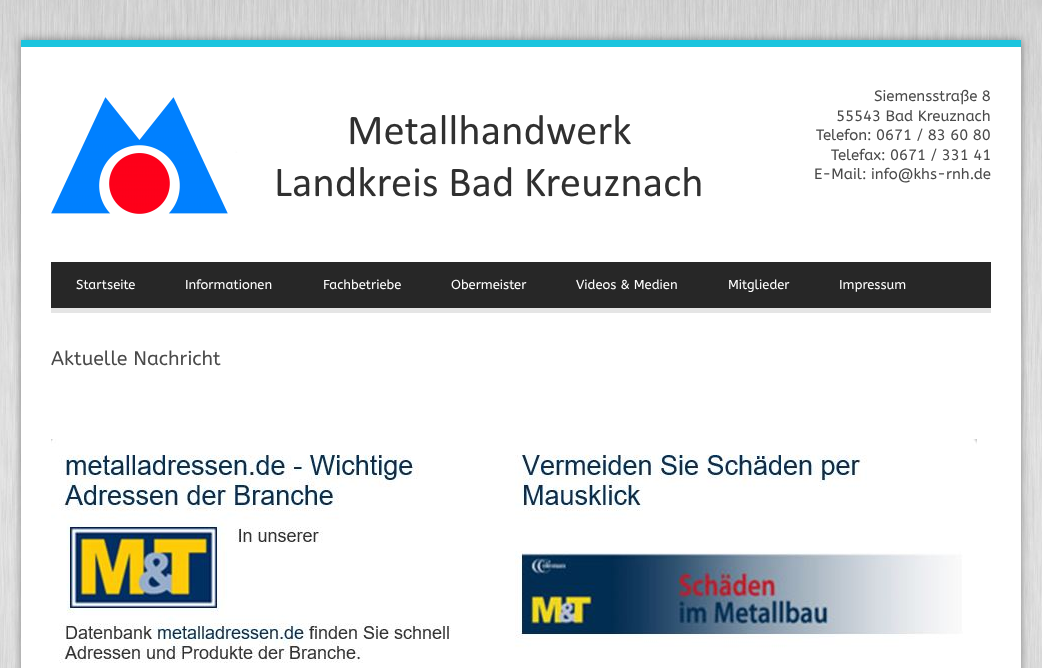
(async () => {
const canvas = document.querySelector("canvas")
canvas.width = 1042
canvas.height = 668
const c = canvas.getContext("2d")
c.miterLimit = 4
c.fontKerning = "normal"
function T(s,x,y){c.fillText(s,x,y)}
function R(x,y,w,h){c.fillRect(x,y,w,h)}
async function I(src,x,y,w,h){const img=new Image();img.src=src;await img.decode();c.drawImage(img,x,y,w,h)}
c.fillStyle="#fff"
R(0,0,1042,668)
await I("1.png",0,0,1042,668)
c.fillStyle="#00000066"
c.filter="blur(4px)"
c.beginPath()
c.rect(21,40,1000,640)
c.fill()
c.filter="none"
c.fillStyle="#1bc4de"
R(21,40,1000,7)
c.fillStyle="#fff"
R(21,47,1000,621)
await I("2.png",51,97,650,117)
c.font="15px ABeeZee"
c.fillStyle="#4a4a4a"
T("Siemensstraße 8",874,101)
T("55543 Bad Kreuznach",836,121)
T("Telefon: 0671 / 83 60 80",816,140)
T("Telefax: 0671 / 331 41",831,160)
T("E-Mail: info@khs-rnh.de",814,179)
c.fillStyle="#272727"
R(51,262,940,46)
c.font="13px ABeeZee"
c.fillStyle="#fff"
T("Startseite",76,289)
T("Informationen",185,289)
T("Fachbetriebe",323,289)
T("Obermeister",451,289)
T("Videos & Medien",576,289)
T("Mitglieder",728,289)
T("Impressum",839,289)
c.fillStyle="#e5e5e5"
R(51,308,940,5)
c.font="19.5px ABeeZee"
c.fillStyle="#4a4a4a"
T("Aktuelle Nachricht",51,365)
await I("3.png",51,439,926,224)
})()
